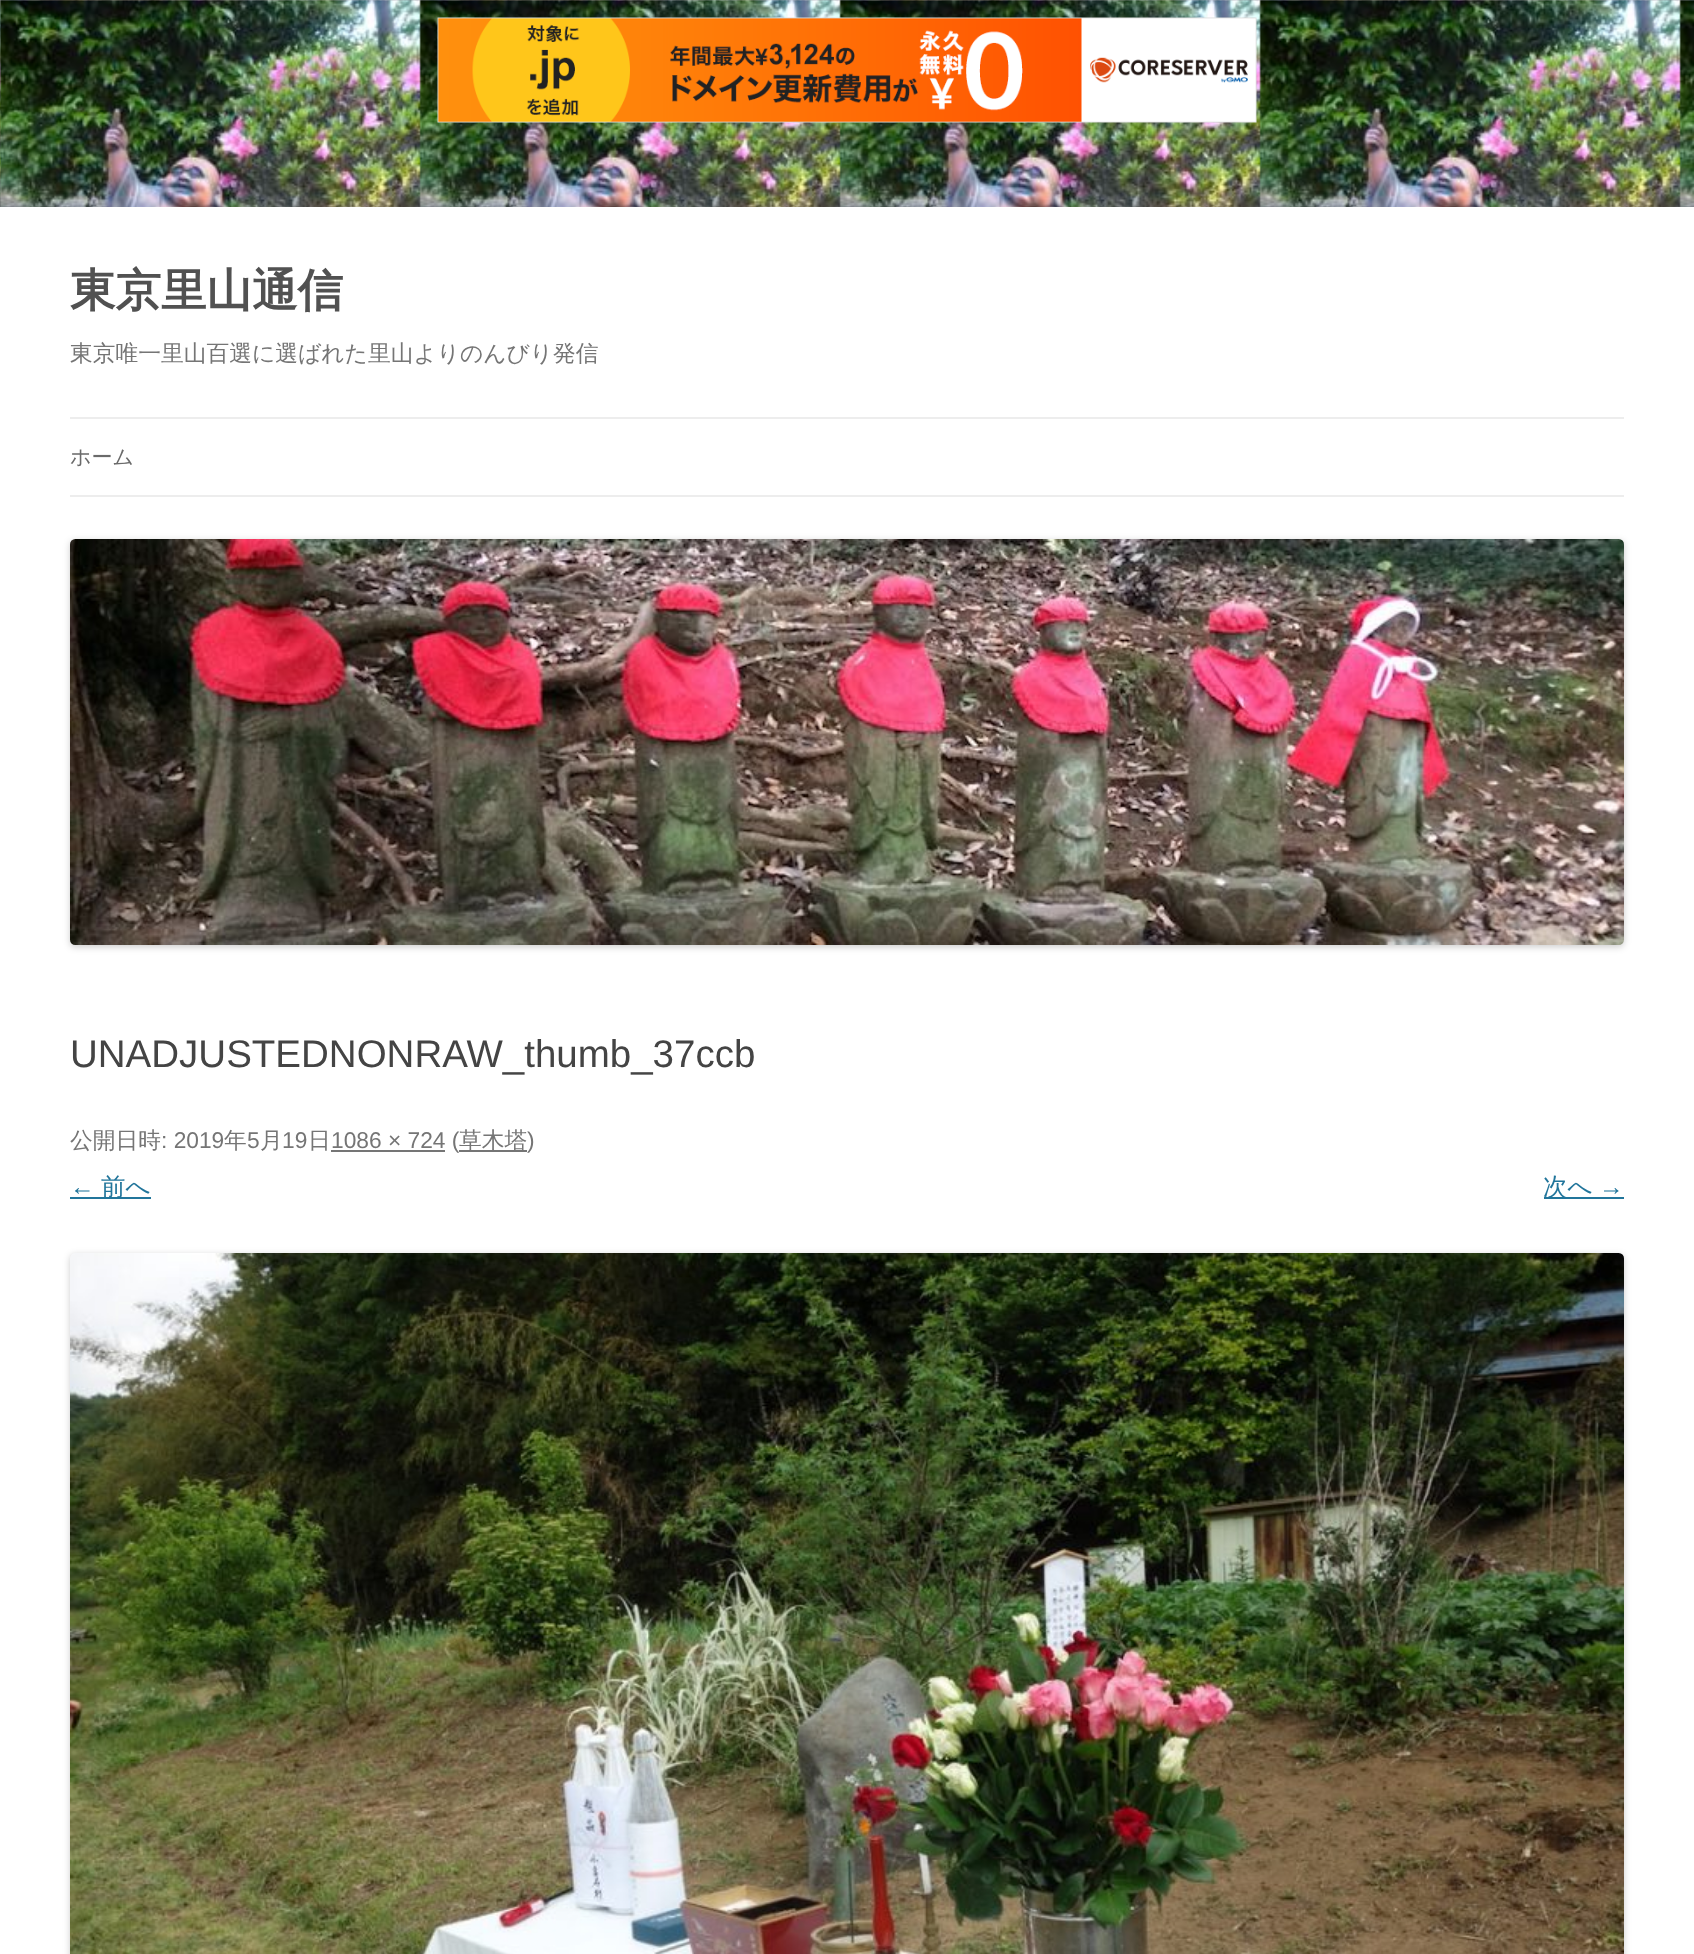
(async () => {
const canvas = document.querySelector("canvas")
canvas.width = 1694
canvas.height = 1954
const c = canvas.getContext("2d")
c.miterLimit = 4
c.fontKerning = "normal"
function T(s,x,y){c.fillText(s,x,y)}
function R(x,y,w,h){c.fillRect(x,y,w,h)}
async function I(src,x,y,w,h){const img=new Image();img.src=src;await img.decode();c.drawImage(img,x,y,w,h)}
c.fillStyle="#fff"
R(0,0,1694,1954)
await I("1.png",0,0,1694,207)
await I("2.png",437,17,820,106)
c.fillStyle="#6464644d"
c.filter="blur(5px)"
c.beginPath()
c.rect(0,210,1694,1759)
c.fill()
c.filter="none"
c.fillStyle="#fff"
R(0,207,1694,1747)
c.font="bold 45.5px WenQuanYi Zen Hei"
c.fillStyle="#515151"
T("東京里山通信",70,306)
c.font="500 22.75px WenQuanYi Zen Hei"
c.fillStyle="#757575"
T("東京唯一里山百選に選ばれた里山よりのんびり発信",70,361)
c.fillStyle="#ededed"
R(70,417,1554,2)
R(70,495,1554,2)
c.font="500 21px WenQuanYi Zen Hei"
c.fillStyle="#6a6a6a"
T("ホーム",70,464)
c.fillStyle="#00000033"
c.filter="blur(3.5px)"
c.beginPath()
c.roundRect(70,541,1554,406,5)
c.fill()
c.filter="none"
await I("3.png",70,539,1554,406)
c.font="38.5px Liberation Sans"
c.fillStyle="#444"
T("UNADJUSTEDNONRAW_thumb_37ccb",70,1067)
c.font="500 22.75px WenQuanYi Zen Hei"
c.fillStyle="#757575"
T("公開日時",70,1148)
c.font="22.75px Liberation Sans"
T(": 2019",161,1148)
c.font="500 22.75px WenQuanYi Zen Hei"
T("年",224,1148)
c.font="22.75px Liberation Sans"
T("5",247,1148)
c.font="500 22.75px WenQuanYi Zen Hei"
T("月",260,1148)
c.font="22.75px Liberation Sans"
T("19",282,1148)
c.font="500 22.75px WenQuanYi Zen Hei"
T("日",308,1148)
R(331,1150,114,2)
c.font="22.75px Liberation Sans"
T("1086 × 724 (",331,1148)
R(459,1150,68,2)
c.font="500 22.75px WenQuanYi Zen Hei"
T("草木塔",459,1148)
c.font="22.75px Liberation Sans"
T(")",527,1148)
c.font="24.5px Liberation Sans"
c.fillStyle="#21759b"
T("←",70,1195)
R(70,1197,81,2)
c.font="500 24.5px WenQuanYi Zen Hei"
T("前へ",101,1195)
R(1544,1197,80,2)
T("次へ",1543,1195)
c.font="24.5px Liberation Sans"
T("→",1599,1195)
c.fillStyle="#00000033"
c.filter="blur(3.5px)"
c.beginPath()
c.roundRect(70,1255,1554,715,5)
c.fill()
c.filter="none"
await I("4.png",70,1253,1554,701)
})()
